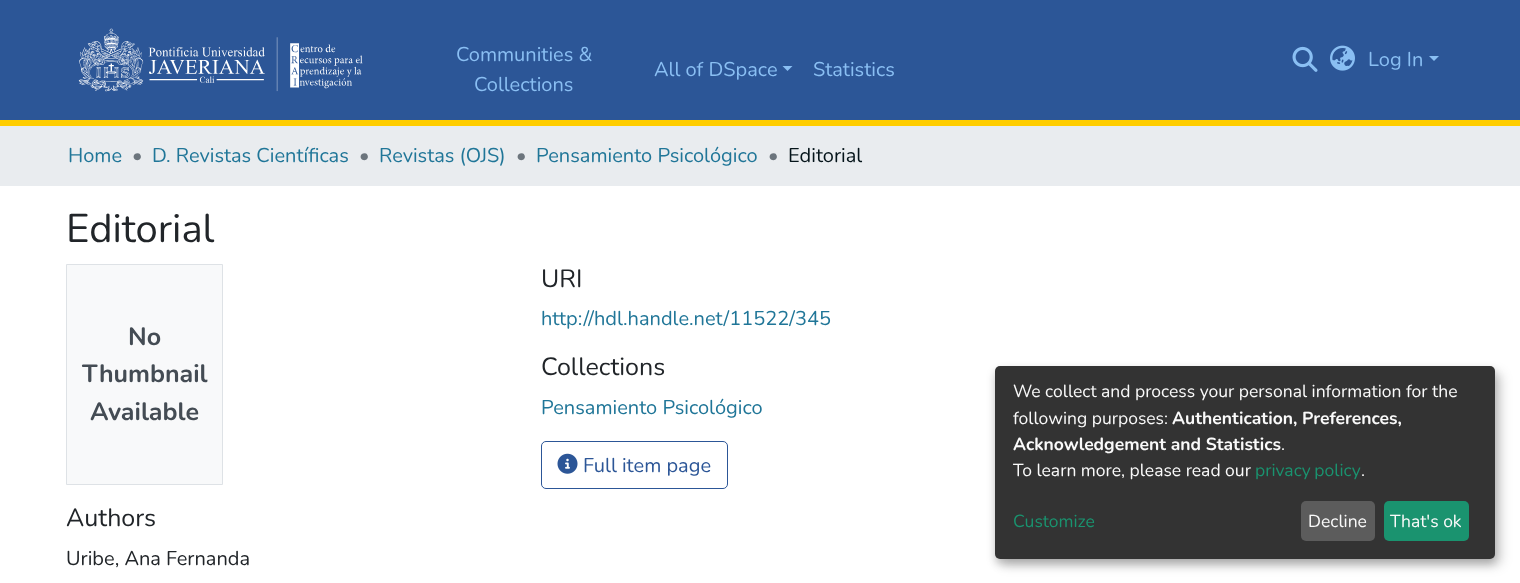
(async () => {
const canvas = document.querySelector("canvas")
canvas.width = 1520
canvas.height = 583
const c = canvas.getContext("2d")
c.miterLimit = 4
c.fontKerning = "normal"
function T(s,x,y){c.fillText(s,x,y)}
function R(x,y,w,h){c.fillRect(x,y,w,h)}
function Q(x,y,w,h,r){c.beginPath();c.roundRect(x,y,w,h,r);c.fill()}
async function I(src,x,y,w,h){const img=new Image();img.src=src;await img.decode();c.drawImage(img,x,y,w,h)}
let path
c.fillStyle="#fff"
R(0,0,1520,583)
c.fillStyle="#2c5697"
R(0,0,1520,120)
c.fillStyle="#ffcd00"
R(0,120,1520,6)
await I("1.png",78,28,285,64)
c.font="20px Nunito"
c.fillStyle="#8abff3"
T("Communities &",456,61)
T("Collections",474,91)
T("All of DSpace",654,76)
path = new Path2D("M782.5 66h10l-5 5z")
c.fill(path)
T("Statistics",813,76)
await I("2.png",1292,46,26,26)
await I("3.png",1330,45,25,26)
T("Log In",1368,66)
path = new Path2D("M1429 56h10l-5 5z")
c.fill(path)
c.fillStyle="#e9ecef"
R(0,126,1520,60)
c.fillStyle="#207698"
T("Home",68,162)
c.fillStyle="#6c757d"
T("•",132,162)
c.fillStyle="#207698"
T("D. Revistas Científicas",152,162)
c.fillStyle="#6c757d"
T("•",359,162)
c.fillStyle="#207698"
T("Revistas (OJS)",379,162)
c.fillStyle="#6c757d"
T("•",516,162)
c.fillStyle="#207698"
T("Pensamiento Psicológico",536,162)
c.fillStyle="#6c757d"
T("•",768,162)
c.fillStyle="#05141a"
T("Editorial",788,162)
c.font="40px Nunito"
c.fillStyle="#212529"
T("Editorial",66,242)
c.fillStyle="#f8f9fa"
c.beginPath()
c.rect(66.5,264.5,156,220)
c.fill()
c.strokeStyle="#dee2e6"
c.stroke()
c.font="bold 25px Nunito"
c.fillStyle="#444c54"
T("No",128,345)
T("Thumbnail",82,382)
T("Available",90,420)
c.font="25px Nunito"
c.fillStyle="#212529"
T("Authors",66,526)
c.font="20px Nunito"
T("Uribe, Ana Fernanda",66,565)
c.font="25px Nunito"
T("URI",541,287)
c.font="20px Nunito"
c.fillStyle="#207698"
T("http://hdl.handle.net/11522/345",541,325)
c.font="25px Nunito"
c.fillStyle="#212529"
T("Collections",541,375)
c.font="20px Nunito"
c.fillStyle="#207698"
T("Pensamiento Psicológico",541,414)
c.beginPath()
c.roundRect(541.5,441.5,186,47,4.5)
c.strokeStyle="#2c5697"
c.stroke()
await I("4.png",557,453,21,21)
c.fillStyle="#2c5697"
T("Full item page",583,472)
c.fillStyle="#00000030"
c.filter="blur(6px)"
c.beginPath()
c.roundRect(1001,373,500,192,5)
c.fill()
c.filter="none"
c.fillStyle="#00000033"
c.filter="blur(4px)"
c.beginPath()
c.roundRect(995,371,500,193,5)
c.fill()
c.filter="none"
c.fillStyle="#333"
Q(995,366,500,193,5)
c.font="17.5px Nunito"
c.fillStyle="#fafafa"
T("We collect and process your personal information for the",1013,397)
T("following purposes:",1013,424)
c.font="bold 17.5px Nunito"
T("Authentication, Preferences,",1172,424)
T("Acknowledgement and Statistics",1013,450)
c.font="17.5px Nunito"
T(".",1281,450)
T("To learn more, please read our",1013,476)
c.wordSpacing="-1px"
c.fillStyle="#1a936f"
T("privacy policy",1255,476)
c.wordSpacing="0px"
c.fillStyle="#fafafa"
T(".",1361,476)
c.fillStyle="#1a936f"
T("Customize",1013,527)
c.fillStyle="#5c5c5c"
Q(1301,501,74,40,5)
c.fillStyle="#fafafa"
T("Decline",1308,527)
c.fillStyle="#1a936f"
Q(1384,501,85,40,5)
c.fillStyle="#fafafa"
T("That's ok",1390,527)
})()
